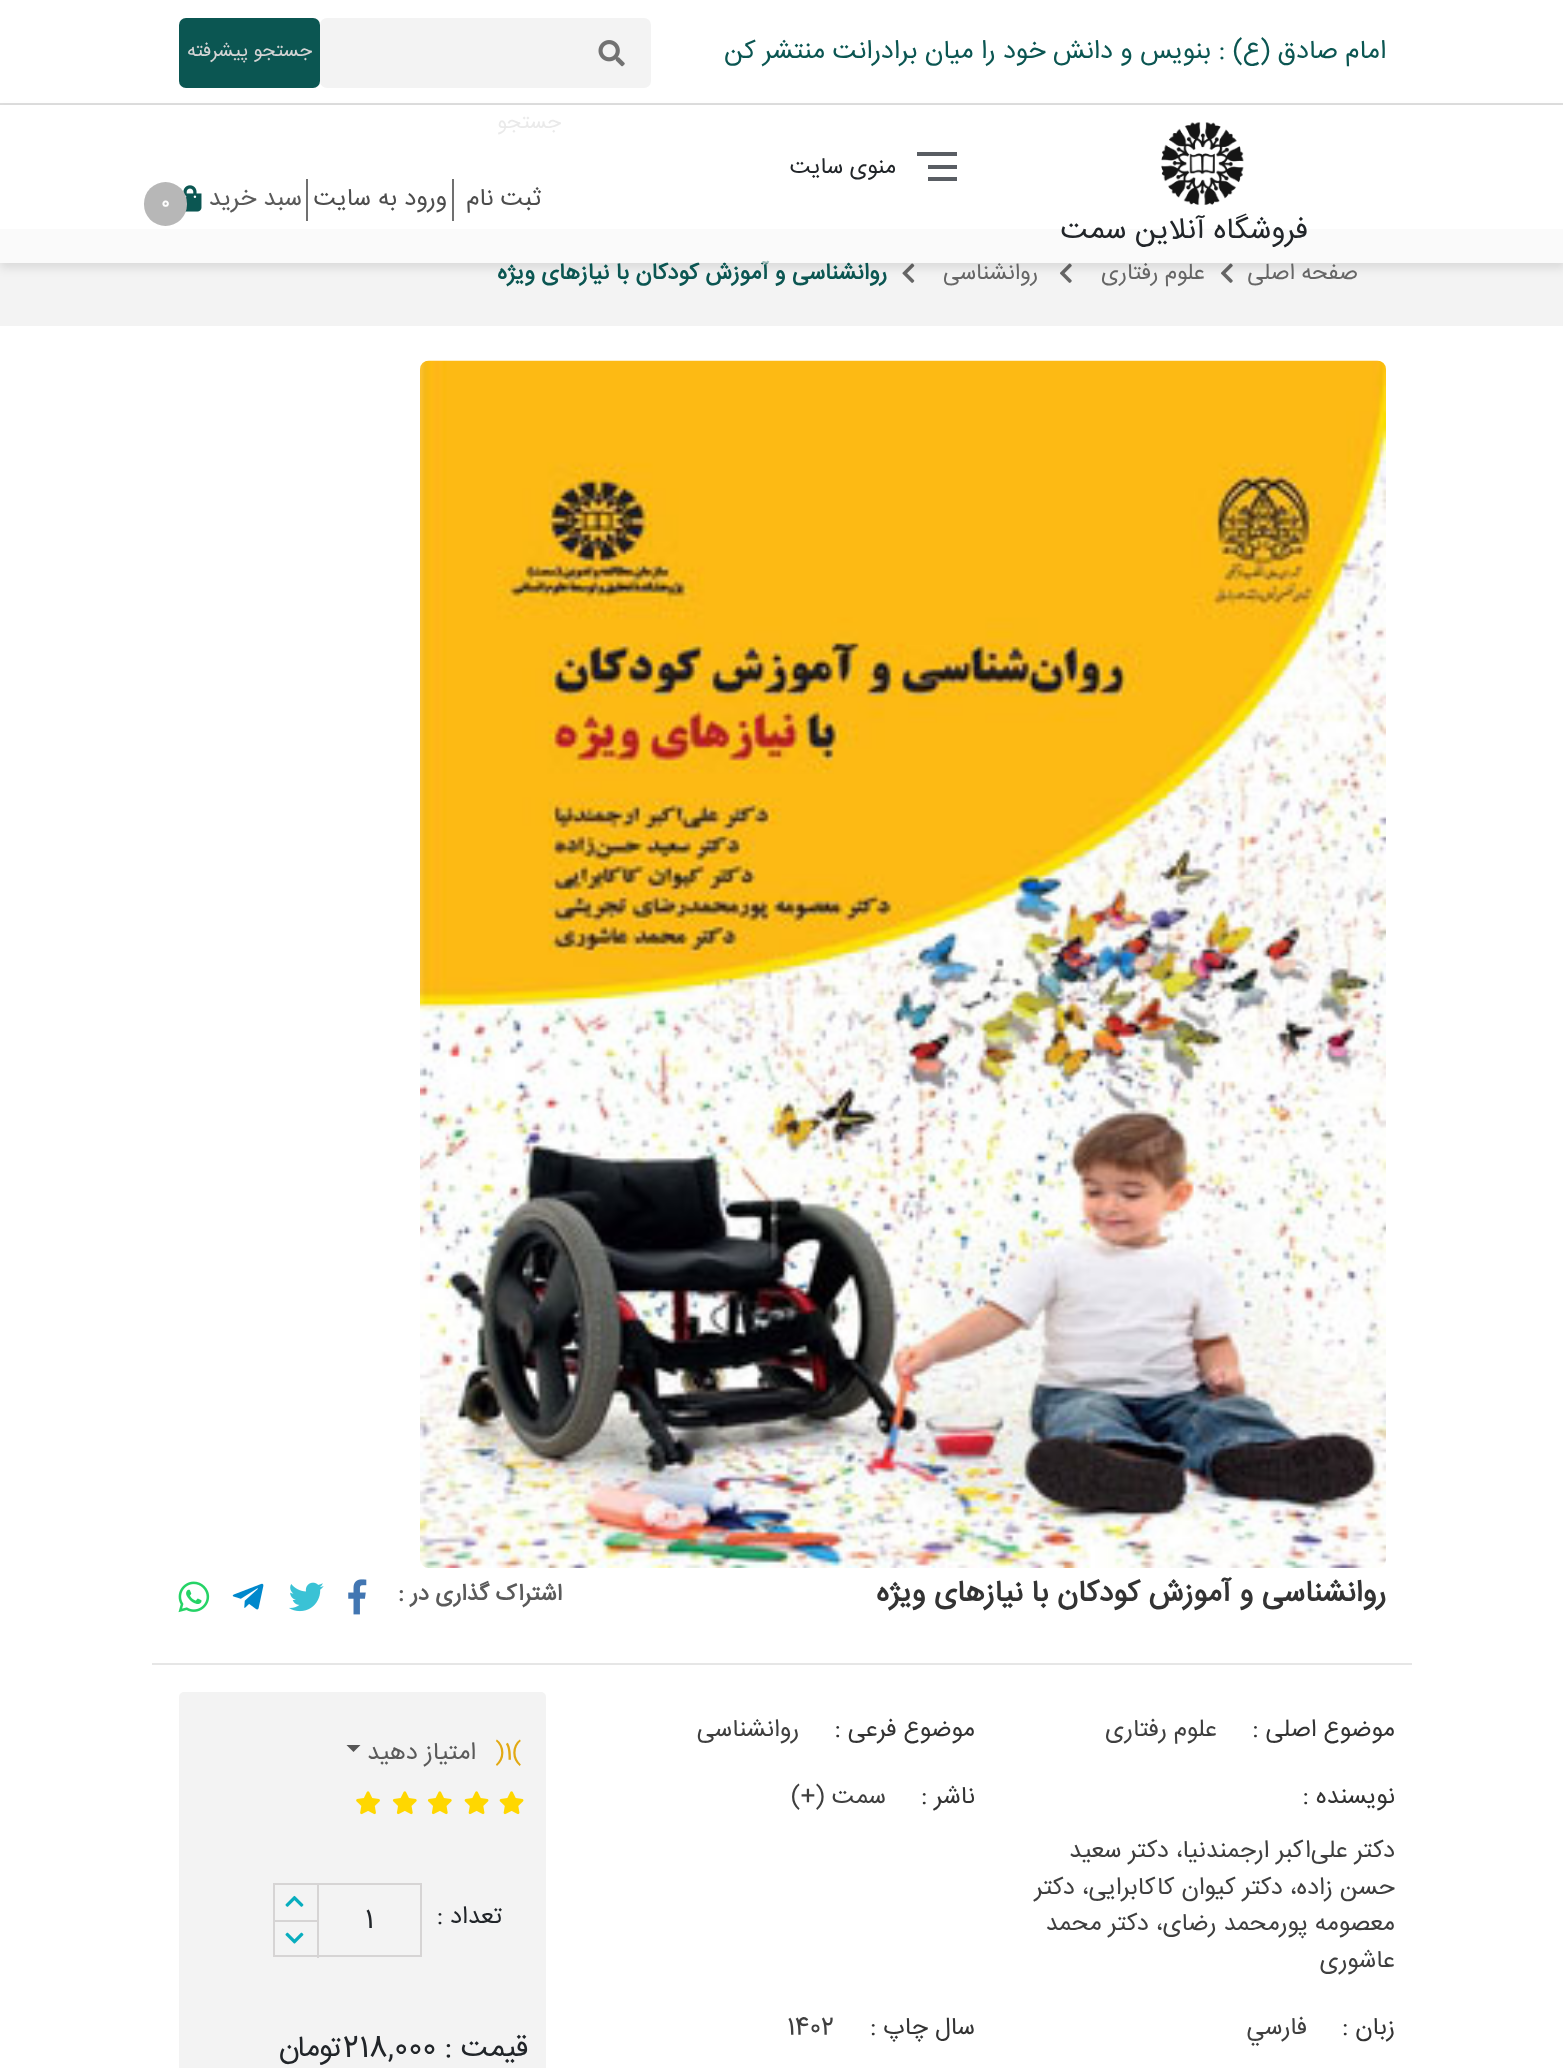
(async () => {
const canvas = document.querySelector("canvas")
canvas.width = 1563
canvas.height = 2068
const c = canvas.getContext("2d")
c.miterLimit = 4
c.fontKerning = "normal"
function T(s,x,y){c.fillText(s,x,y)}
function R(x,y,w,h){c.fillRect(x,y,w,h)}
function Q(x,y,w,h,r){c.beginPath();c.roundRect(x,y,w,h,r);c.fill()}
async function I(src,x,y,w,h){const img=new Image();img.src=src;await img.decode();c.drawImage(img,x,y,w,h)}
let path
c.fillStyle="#fff"
R(0,0,1563,2068)
c.fillStyle="#dedede"
R(0,103,1563,2)
c.direction="rtl"
c.font="26.25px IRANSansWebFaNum"
c.fillStyle="#0b5652"
T("امام صادق (ع) : بنویس و دانش خود را میان برادرانت منتشر کن",1386,58)
Q(179,18,141,70,7)
c.font="19.25px IRANSansWebFaNum"
c.fillStyle="#d4d4d4"
T("جستجو پیشرفته",312,56)
c.fillStyle="#f3f3f3"
Q(320,18,331,70,7)
await I("1.png",598,40,27,27)
c.font="21px IRANSansWebFaNum"
c.fillStyle="#cbcbcb"
T("جستجو",561,128)
c.fillStyle="#f3f3f3"
R(0,229,1563,97)
await I("4.png",1221,263,12,20)
await I("4.png",1060,263,12,20)
await I("5.png",902,263,13,20)
c.save()
path = new Path2D("M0 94h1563v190h-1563zm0 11h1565v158h-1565z")
c.clip(path,"evenodd")
c.fillStyle="#0000001a"
c.filter="blur(5px)"
c.beginPath()
c.rect(0,110,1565,158)
c.fill()
c.filter="none"
c.restore()
c.font="22.75px IRANSansWebFaNum"
c.fillStyle="#666"
T("علوم رفتاری",1205,279)
c.font="bold 22.75px IRANSansWebFaNum"
c.fillStyle="#0b5652"
T("روانشناسی و آموزش کودکان با نیازهای ویژه",887,279)
c.fillStyle="#ffffff99"
R(0,116,1563,147)
c.fillStyle="#595d63"
R(928,165,29,4)
R(917,152,40,4)
R(928,177,29,4)
c.font="22.75px IRANSansWebFaNum"
c.fillStyle="#212529"
T("منوی سایت",896,173)
c.font="24.5px IRANSansWebFaNum"
c.fillStyle="#4d4d4d"
T("ثبت نام",541,205)
c.fillStyle="#707070"
R(452,179,2,42)
c.fillStyle="#4d4d4d"
T("ورود به سایت",447,205)
c.fillStyle="#707070"
R(306,179,2,42)
c.fillStyle="#5a5a5a"
T("سبد خرید",302,205)
await I("2.png",183,185,19,27)
c.fillStyle="#b7b7b7"
Q(144,182,43,44,21.5)
c.direction="ltr"
c.font="bold 18px IRANSansWebFaNum"
c.fillStyle="#fff"
T("0",161,208)
await I("3.png",1161,122,83,83)
c.direction="rtl"
c.font="29.75px IRANSansWebFaNum"
c.fillStyle="#212529"
T("فروشگاه آنلاین سمت",1308,238)
c.font="22.75px IRANSansWebFaNum"
c.fillStyle="#666"
T("صفحه اصلی",1358,279)
T("روانشناسی",1038,279)
await I("6.png",420,360,966,1208)
c.font="bold 29.75px IRANSansWebFaNum"
c.fillStyle="#333"
T("روانشناسی و آموزش کودکان با نیازهای ویژه",1386,1601)
c.font="bold 22.75px IRANSansWebFaNum"
c.fillStyle="#5a5a5a"
T("اشتراک گذاری در :",562,1600)
await I("7.png",348,1579,19,36)
await I("8.png",289,1582,35,30)
await I("9.png",232,1583,32,27)
await I("10.png",178,1581,32,32)
c.fillStyle="#e6e6e6"
R(152,1663,1260,2)
c.font="24.5px IRANSansWebFaNum"
c.fillStyle="#333"
T("موضوع اصلی :",1395,1736)
c.fillStyle="#3f3f3f"
T("علوم رفتاری",1217,1736)
c.fillStyle="#333"
T("موضوع فرعی :",975,1736)
c.fillStyle="#3f3f3f"
T("روانشناسی",799,1736)
c.fillStyle="#333"
T("نویسنده :",1395,1803)
c.fillStyle="#3f3f3f"
T("دکتر علی‌اکبر ارجمندنیا، دکتر سعید",1395,1857)
T("حسن زاده، دکتر کیوان کاکابرایی، دکتر",1395,1894)
T("معصومه پورمحمد رضای، دکتر محمد",1395,1930)
T("عاشوری",1395,1967)
c.fillStyle="#333"
T("ناشر :",975,1803)
c.fillStyle="#3f3f3f"
T("سمت (+)",886,1803)
c.fillStyle="#333"
T("زبان :",1395,2034)
c.fillStyle="#3f3f3f"
T("فارسي",1307,2034)
c.fillStyle="#333"
T("سال چاپ :",975,2034)
c.direction="ltr"
c.fillStyle="#3f3f3f"
T("1402",787,2034)
c.fillStyle="#f3f3f3"
Q(179,1692,367,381,5)
c.fillStyle="#e2a913"
T(")1(",495,1759)
c.direction="rtl"
c.fillStyle="#5a5a5a"
T("امتیاز دهید",476,1759)
c.fillStyle="#555"
path = new Path2D("M346.5 1745h14l-7 7z")
c.fill(path)
await I("11.png",499,1791,25,24)
await I("11.png",464,1791,25,24)
await I("12.png",427,1791,25,24)
await I("12.png",392,1791,25,24)
await I("13.png",356,1791,24,24)
c.fillStyle="#212529"
T("تعداد :",502,1923)
c.strokeStyle="#d6d4d4"
c.lineWidth=2
c.strokeRect(274,1884,147,72)
c.direction="ltr"
c.font="26.25px IRANSansWebFaNum"
T("1",365,1927)
c.fillStyle="#d6d4d4"
R(317,1885,2,73)
R(275,1920,44,2)
await I("14.png",285,1895,19,12)
await I("15.png",285,1932,19,12)
c.direction="rtl"
c.font="29.75px IRANSansWebFaNum"
c.fillStyle="#212529"
T("قیمت :",528,2056)
c.direction="ltr"
T("218,000",343,2056)
c.direction="rtl"
T("تومان",343,2056)
})()
